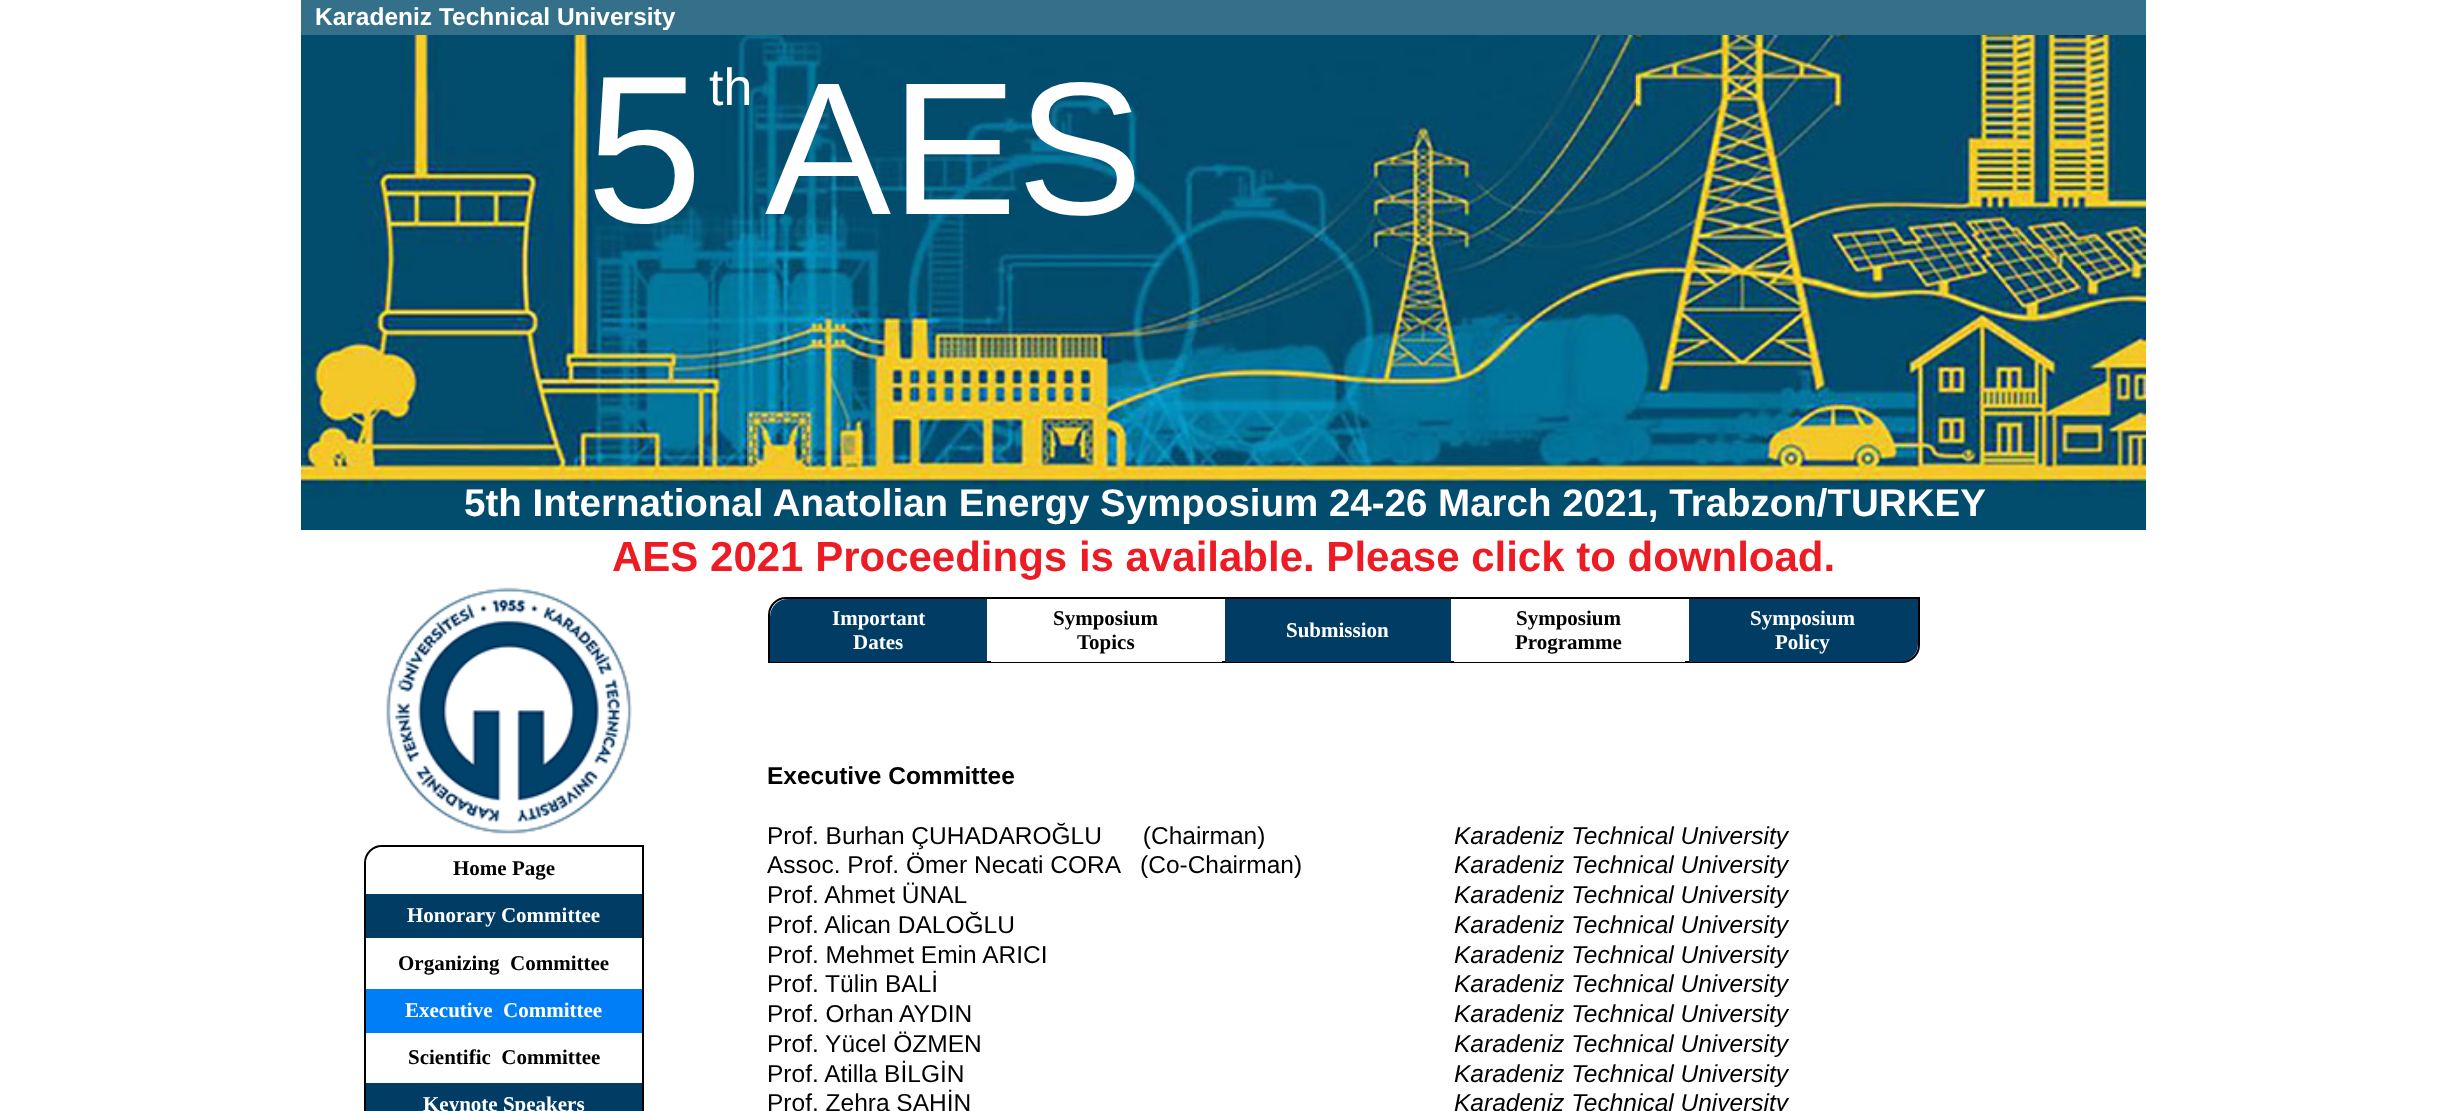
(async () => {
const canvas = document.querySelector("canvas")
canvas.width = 2464
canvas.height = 1111
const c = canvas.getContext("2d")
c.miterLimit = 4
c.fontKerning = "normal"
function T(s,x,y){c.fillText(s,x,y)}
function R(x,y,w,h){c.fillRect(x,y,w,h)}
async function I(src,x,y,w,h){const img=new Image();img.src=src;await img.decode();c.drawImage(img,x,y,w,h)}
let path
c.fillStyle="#fff"
R(0,0,2464,1111)
c.fillStyle="#34708a"
R(301,0,1845,35)
c.font="bold 24.5px Liberation Sans"
c.fillStyle="#fff"
T("Karadeniz Technical University",315,25)
await I("1.png",301,35,1845,495)
c.font="bold 38.5px Liberation Sans"
T("5th International Anatolian Energy Symposium 24-26 March 2021, Trabzon/TURKEY",464,516)
c.font="bold 42px Liberation Sans"
c.fillStyle="#ed1c24"
T("AES 2021 Proceedings is available. Please click to download.",612,571)
c.font="210px Liberation Sans"
c.fillStyle="#fff"
T("5",586,222)
c.font="52px Liberation Sans"
T("th",709,105)
c.font="189px Liberation Sans"
T("AES",765,214)
await I("2.png",386,587,246,247)
path = new Path2D("M382 846h261v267c0 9.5-7.5 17-17 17h-261v-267c0-9.5 7.5-17 17-17z")
c.strokeStyle="#000"
c.lineWidth=2
c.stroke(path)
c.beginPath()
c.roundRect(366,847,276,44,[18,0,0,0])
c.fill()
c.font="bold 21px Liberation Serif"
c.fillStyle="#000"
T("Home Page",453,875)
c.fillStyle="#003c63"
R(366,894,276,44)
c.fillStyle="#fff"
T("Honorary Committee",407,922)
c.fillStyle="#000"
T("Organizing  Committee",398,970)
c.fillStyle="#007ef8"
R(366,989,276,44)
c.fillStyle="#fff"
T("Executive  Committee",405,1017)
c.fillStyle="#000"
T("Scientific  Committee",408,1064)
c.fillStyle="#003c63"
R(366,1083,276,28)
c.fillStyle="#fff"
T("Keynote Speakers",423,1111)
c.beginPath()
c.roundRect(769,598,1150,64,[17,0,17,0])
c.stroke()
c.fillStyle="#003c63"
c.beginPath()
c.roundRect(770,599,217,63,[18,0,0,0])
c.fill()
c.fillStyle="#fff"
T("Important",832,625)
T("Dates",853,649)
R(991,661,231,1)
c.fillStyle="#000"
T("Symposium",1053,625)
T("Topics",1077,649)
c.fillStyle="#003c63"
R(1225,599,226,63)
c.fillStyle="#fff"
T("Submission",1286,637)
R(1454,661,231,1)
c.fillStyle="#000"
T("Symposium",1516,625)
T("Programme",1515,649)
c.fillStyle="#003c63"
c.beginPath()
c.roundRect(1689,599,229,63,[0,0,18,0])
c.fill()
c.fillStyle="#fff"
T("Symposium",1750,625)
T("Policy",1775,649)
c.font="bold 24.5px Liberation Sans"
c.fillStyle="#000"
T("Executive Committee",767,784)
c.font="24.5px Liberation Sans"
T("Prof. Burhan ÇUHADAROĞLU      (Chairman)",767,844)
T("Assoc. Prof. Ömer Necati CORA   (Co-Chairman)",767,873)
T("Prof. Ahmet ÜNAL",767,903)
T("Prof. Alican DALOĞLU",767,933)
T("Prof. Mehmet Emin ARICI",767,963)
T("Prof. Tülin BALİ",767,992)
T("Prof. Orhan AYDIN",767,1022)
T("Prof. Yücel ÖZMEN",767,1052)
T("Prof. Atilla BİLGİN",767,1082)
T("Prof. Zehra ŞAHİN",767,1111)
c.font="italic 24.5px Liberation Sans"
T("Karadeniz Technical University",1454,844)
T("Karadeniz Technical University",1454,873)
T("Karadeniz Technical University",1454,903)
T("Karadeniz Technical University",1454,933)
T("Karadeniz Technical University",1454,963)
T("Karadeniz Technical University",1454,992)
T("Karadeniz Technical University",1454,1022)
T("Karadeniz Technical University",1454,1052)
T("Karadeniz Technical University",1454,1082)
T("Karadeniz Technical University",1454,1111)
})()
